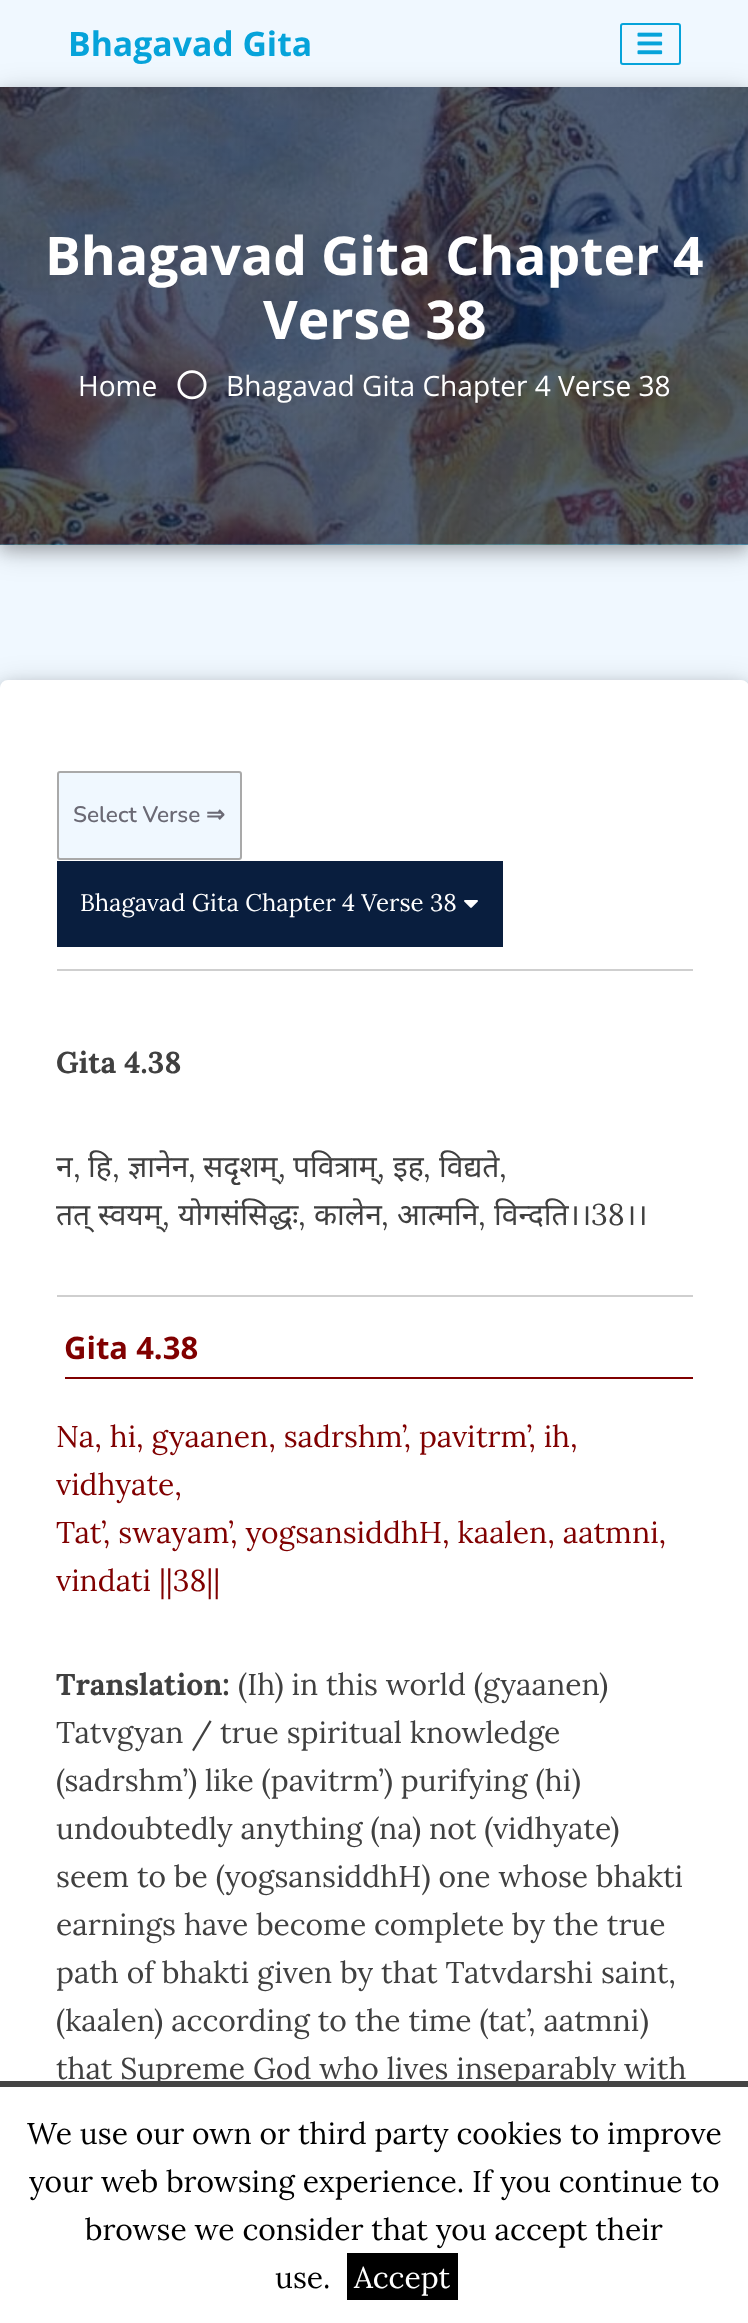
(async () => {
const canvas = document.querySelector("canvas")
canvas.width = 748
canvas.height = 2323
const c = canvas.getContext("2d")
c.miterLimit = 4
c.fontKerning = "normal"
function T(s,x,y){c.fillText(s,x,y)}
function R(x,y,w,h){c.fillRect(x,y,w,h)}
function Q(x,y,w,h,r){c.beginPath();c.roundRect(x,y,w,h,r);c.fill()}
async function I(src,x,y,w,h){const img=new Image();img.src=src;await img.decode();c.drawImage(img,x,y,w,h)}
c.fillStyle="#f0f8ff"
R(0,0,748,2323)
c.fillStyle="#00000030"
c.filter="blur(15px)"
c.beginPath()
c.rect(0,93,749,458)
c.fill()
c.filter="none"
c.font="bold 33.75px Open Sans"
c.fillStyle="#06a3da"
T("Bhagavad Gita",68,56)
c.beginPath()
c.roundRect(621,24,59,40,2)
c.strokeStyle="#06a3da"
c.lineWidth=2
c.stroke()
await I("1.png",637,32,26,23)
c.fillStyle="#00000033"
c.filter="blur(7.5px)"
c.beginPath()
c.rect(0,93,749,458)
c.fill()
c.filter="none"
c.fillStyle="#06a3da"
R(0,544,748,1)
await I("2.png",0,87,748,458)
c.font="bold 53.4px Open Sans"
c.fillStyle="#fff"
T("Bhagavad Gita Chapter 4",45,275)
T("Verse 38",263,339)
c.font="28.1px Open Sans"
T("Home",78,396)
await I("3.png",177,370,30,30)
T("Bhagavad Gita Chapter 4 Verse 38",226,396)
c.fillStyle="#00000030"
c.filter="blur(15px)"
c.beginPath()
c.roundRect(0,686,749,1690,8)
c.fill()
c.filter="none"
c.fillStyle="#00000033"
c.filter="blur(7.5px)"
c.beginPath()
c.roundRect(0,686,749,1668,8)
c.fill()
c.filter="none"
c.fillStyle="#fff"
Q(0,680,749,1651,8)
c.fillStyle="#f0f8ff"
c.beginPath()
c.roundRect(58,772,183,87,2)
c.fill()
c.strokeStyle="#a9a9a9"
c.stroke()
c.font="600 22.5px Nunito"
c.fillStyle="#6b6a75"
T("Select Verse",73,822)
c.font="bold 22.5px DejaVu Sans"
T("⇒",206,822)
c.fillStyle="#091e3e"
R(57,861,446,86)
c.font="24px Lora"
c.fillStyle="#fff"
T("Bhagavad Gita Chapter 4 Verse 38",80,911)
await I("4.png",464,900,14,8)
c.fillStyle="#cfcfcf"
R(57,969,636,2)
c.font="bold 30px Lora"
c.fillStyle="#404040"
T("Gita 4.38",56,1073)
c.font="30px Noto Sans"
T("न",56,1177)
c.font="30px Lora"
T(",",73,1177)
c.font="30px Noto Sans"
T("हि",88,1177)
c.font="30px Lora"
T(",",112,1177)
c.font="30px Noto Sans"
T("ज्ञानेन",128,1177)
c.font="30px Lora"
T(",",188,1177)
c.font="30px Noto Sans"
T("सदृृशम्",203,1177)
c.font="30px Lora"
T(",",278,1177)
c.font="30px Noto Sans"
T("पवित्राम्",293,1177)
c.font="30px Lora"
T(",",377,1177)
c.font="30px Noto Sans"
T("इह",393,1177)
c.font="30px Lora"
T(",",423,1177)
c.font="30px Noto Sans"
T("विद्यते",439,1177)
c.font="30px Lora"
T(",",499,1177)
c.font="30px Noto Sans"
T("तत् स्वयम्",56,1225)
T("योगसंसिद्धः",178,1225)
T("कालेन",314,1225)
T("आत्मनि",397,1225)
T("विन्दति।।",494,1225)
c.font="30px Lora"
T("38",591,1225)
c.font="30px Noto Sans"
T("।।",625,1225)
c.font="30px Lora"
T(",",162,1225)
T(",",298,1225)
T(",",381,1225)
T(",",478,1225)
c.fillStyle="#cfcfcf"
R(57,1295,636,2)
c.fillStyle="#800000"
R(65,1377,628,2)
c.font="bold 31px Open Sans"
T("Gita 4.38",64,1359)
c.font="30px Lora"
T("Na, hi, gyaanen, sadrshm’, pavitrm’, ih,",56,1447)
T("vidhyate,",56,1495)
T("Tat’, swayam’, yogsansiddhH, kaalen, aatmni,",56,1543)
T("vindati ||38||",56,1591)
c.font="bold 30px Lora"
c.fillStyle="#404040"
T("Translation:",56,1695)
c.font="30px Lora"
T("(Ih) in this world (gyaanen)",238,1695)
T("Tatvgyan / true spiritual knowledge",56,1743)
T("(sadrshm’) like (pavitrm’) purifying (hi)",56,1791)
T("undoubtedly anything (na) not (vidhyate)",56,1839)
T("seem to be (yogsansiddhH) one whose bhakti",56,1887)
T("earnings have become complete by the true",56,1935)
T("path of bhakti given by that Tatvdarshi saint,",56,1983)
T("(kaalen) according to the time (tat’, aatmni)",56,2031)
T("that Supreme God who lives inseparably with",56,2079)
c.fillStyle="#fff"
R(603,2087,2,1)
c.fillStyle="#444"
R(0,2081,748,6)
c.fillStyle="#000"
T("We use our own or third party cookies to improve",27,2144)
T("your web browsing experience. If you continue to",29,2192)
T("browse we consider that you accept their",85,2240)
T("use.",275,2288)
R(347,2253,111,47)
c.fillStyle="#fff"
T("Accept",354,2288)
})()
